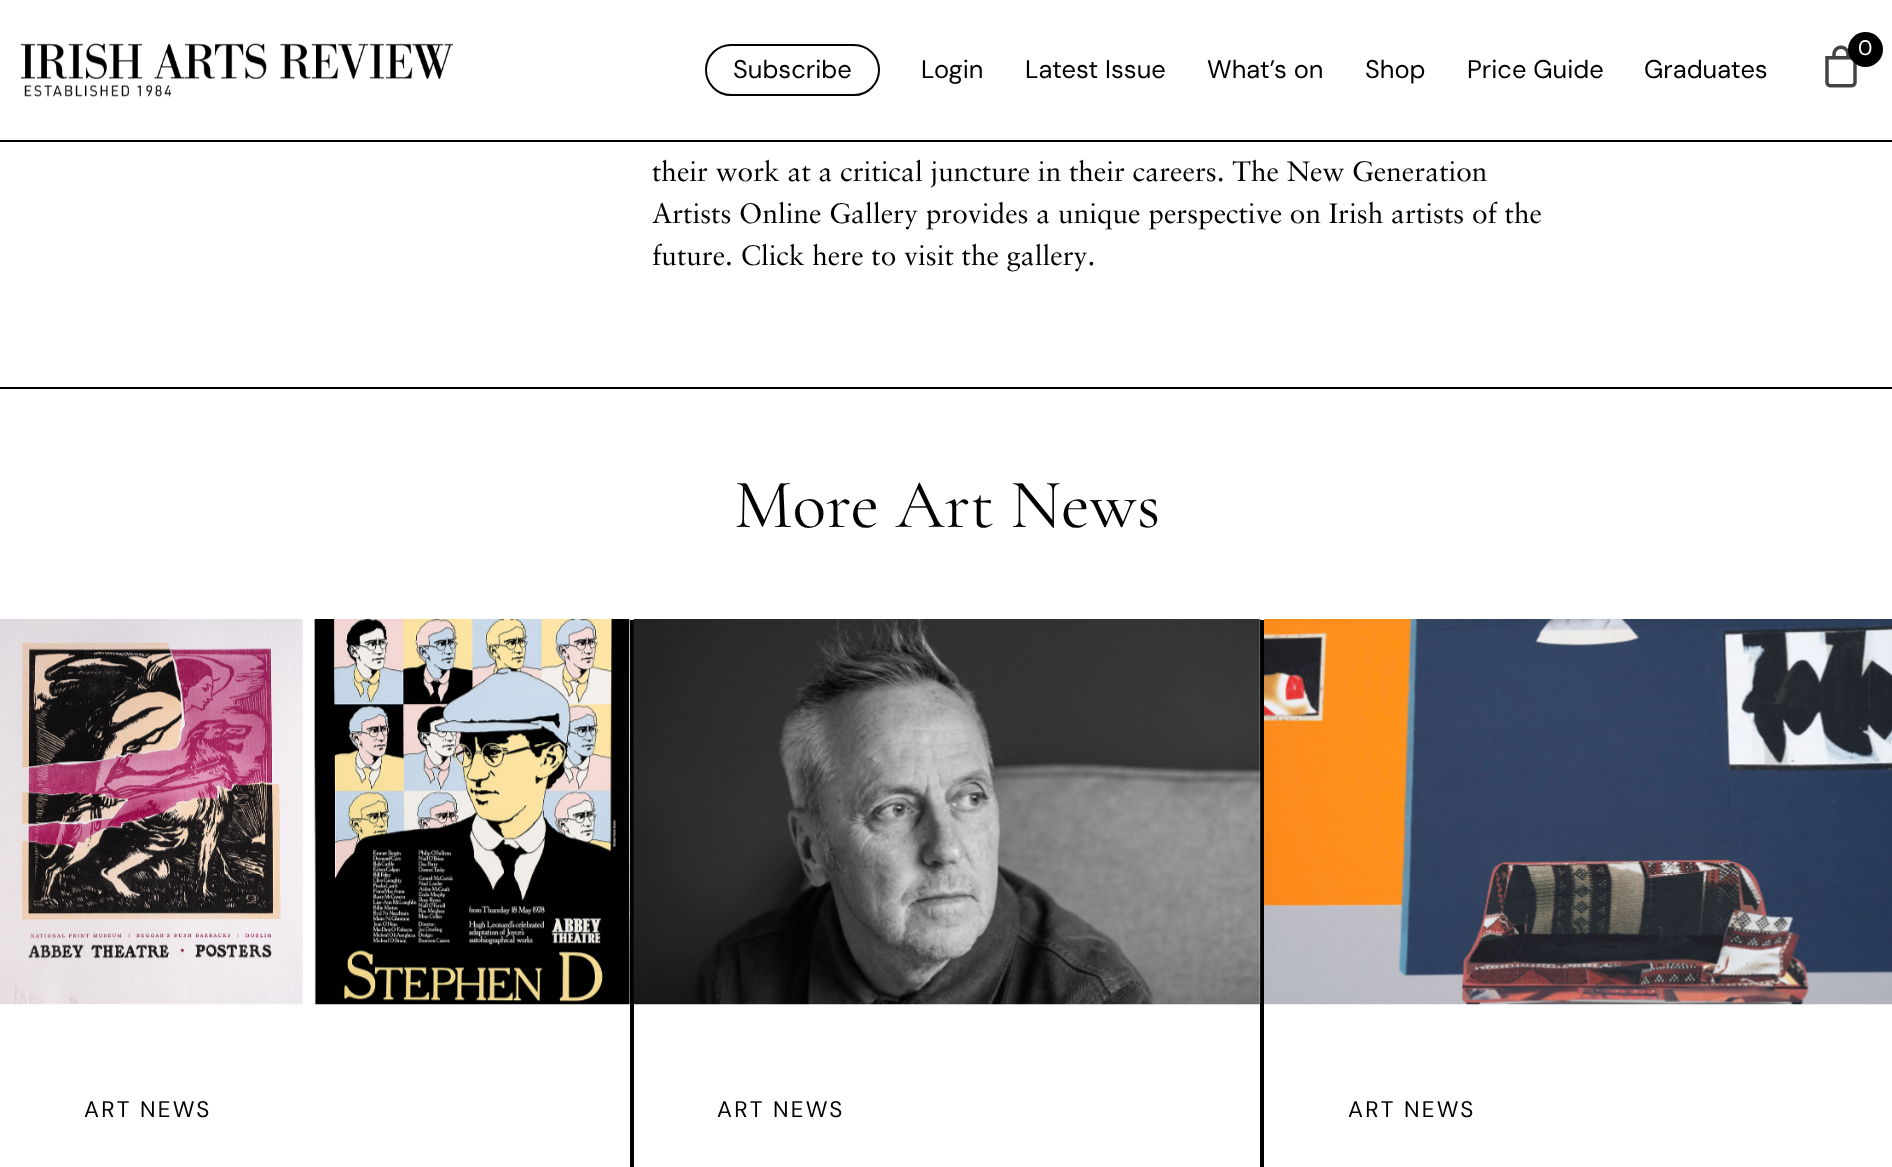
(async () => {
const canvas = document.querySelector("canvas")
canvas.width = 1892
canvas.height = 1167
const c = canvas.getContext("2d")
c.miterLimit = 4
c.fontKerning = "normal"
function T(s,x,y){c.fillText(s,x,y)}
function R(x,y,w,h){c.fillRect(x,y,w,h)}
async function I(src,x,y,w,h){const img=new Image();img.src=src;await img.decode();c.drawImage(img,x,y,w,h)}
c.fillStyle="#fff"
R(0,0,1892,1167)
await I("1.png",1825,45,32,43)
c.fillStyle="#000"
c.beginPath()
c.arc(1865.5,49.5,17.5,0,7)
c.fill()
c.font="21px DM Sans"
c.fillStyle="#fff"
T("0",1858,55)
c.fillStyle="#000"
R(0,140,1892,2)
await I("2.png",21,43,432,54)
c.beginPath()
c.roundRect(706,45,173,50,25)
c.strokeStyle="#000"
c.lineWidth=2
c.stroke()
c.font="25.5px DM Sans"
T("Subscribe",733,78)
T("Login",921,78)
T("Latest Issue",1025,78)
T("What’s on",1207,78)
T("Shop",1365,78)
T("Price Guide",1467,78)
T("Graduates",1644,78)
c.font="28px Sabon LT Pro"
T("their work at a critical juncture in their careers. The New Generation",652,181)
T("Artists Online Gallery provides a unique perspective on Irish artists of the",652,223)
T("future. Click here to visit the gallery.",652,265)
R(0,387,1892,2)
c.font="300 70px Cormorant Garamond"
T("More Art News",734,527)
R(630,620,4,547)
await I("3.png",0,619,630,386)
c.letterSpacing="2.25px"
c.font="22.5px DM Sans"
T("ART NEWS",84,1117)
R(1260,620,4,547)
await I("4.png",632,619,629,386)
T("ART NEWS",717,1117)
await I("5.png",1264,619,628,386)
T("ART NEWS",1348,1117)
})()
